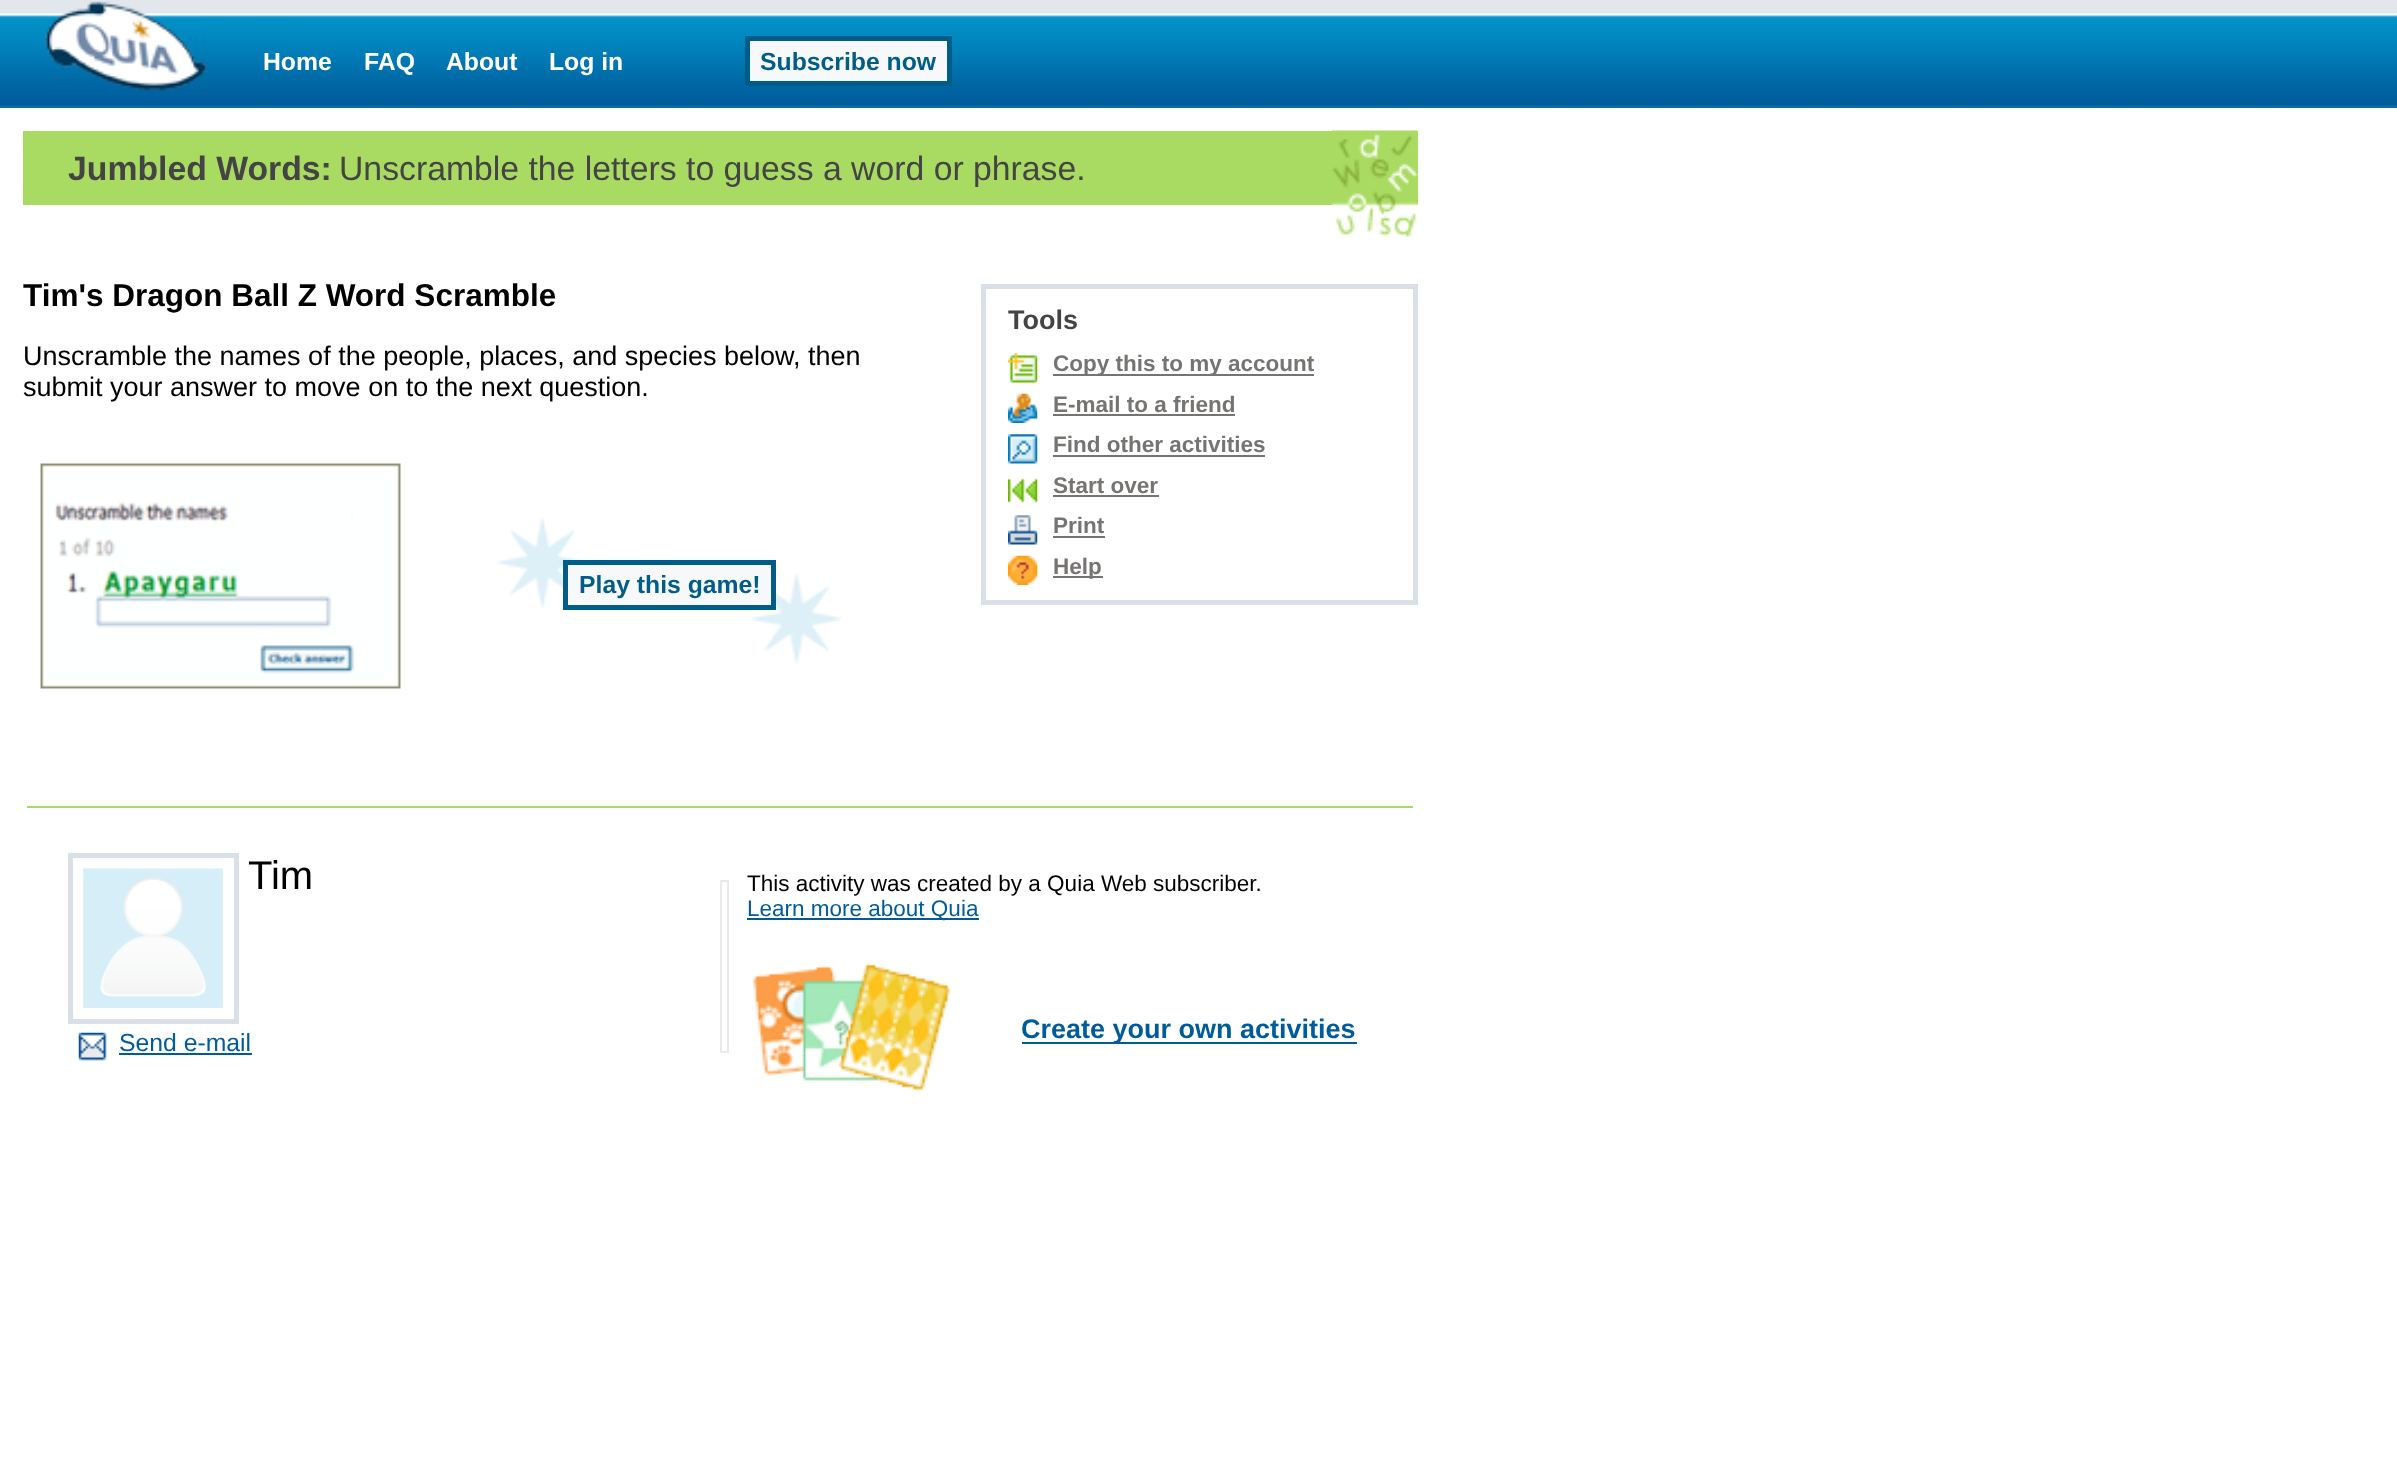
(async () => {
const canvas = document.querySelector("canvas")
canvas.width = 2397
canvas.height = 1471
const c = canvas.getContext("2d")
c.miterLimit = 4
c.fontKerning = "normal"
function T(s,x,y){c.fillText(s,x,y)}
function R(x,y,w,h){c.fillRect(x,y,w,h)}
async function I(src,x,y,w,h){const img=new Image();img.src=src;await img.decode();c.drawImage(img,x,y,w,h)}
c.fillStyle="#fff"
R(0,0,2397,1471)
await I("1.png",0,0,2397,108)
await I("2.png",45,1,162,90)
c.font="bold 24.75px Liberation Sans"
T("Home",263,70)
T("FAQ",364,70)
T("About",446,70)
T("Log in",549,70)
c.fillStyle="#f6f8f9"
c.beginPath()
c.rect(747.5,38.5,202,45)
c.fill()
c.strokeStyle="#005d89"
c.lineWidth=5
c.stroke()
c.fillStyle="#005d89"
T("Subscribe now",760,70)
c.fillStyle="#a9db63"
R(23,131,1395,74)
c.font="bold 33.75px Liberation Sans"
c.fillStyle="#444"
T("Jumbled Words:",68,180)
c.font="33.75px Liberation Sans"
T("Unscramble the letters to guess a word or phrase.",339,180)
await I("3.png",1332,130,86,107)
c.font="bold 31.5px Liberation Sans"
c.fillStyle="#000"
T("Tim's Dragon Ball Z Word Scramble",23,306)
c.font="27px Liberation Sans"
T("Unscramble the names of the people, places, and species below, then",23,365)
T("submit your answer to move on to the next question.",23,396)
await I("4.png",40,463,361,226)
await I("5.png",497,517,91,91)
await I("6.png",751,573,91,91)
c.fillStyle="#f6f8f9"
c.beginPath()
c.rect(565.5,562.5,208,45)
c.fill()
c.stroke()
c.font="bold 24.75px Liberation Sans"
c.fillStyle="#005d89"
T("Play this game!",579,593)
c.strokeStyle="#d8dfe6"
c.strokeRect(983.5,286.5,432,316)
c.font="bold 27px Liberation Sans"
c.fillStyle="#444"
T("Tools",1008,329)
await I("7.png",1008,353,30,30)
c.fillStyle="#767472"
R(1053,374,261,2)
c.font="bold 22.5px Liberation Sans"
T("Copy this to my account",1053,371)
await I("8.png",1008,393,30,30)
T("E-mail to a friend",1053,412)
R(1053,414,182,2)
await I("9.png",1008,434,30,30)
T("Find other activities",1053,452)
R(1053,455,212,2)
await I("10.png",1008,478,30,25)
T("Start over",1053,493)
R(1053,495,106,2)
await I("11.png",1008,515,30,30)
T("Print",1053,533)
R(1053,536,52,2)
await I("12.png",1008,555,30,30)
R(1053,576,50,2)
T("Help",1053,574)
c.fillStyle="#a9db63"
R(27,806,1386,2)
c.strokeRect(70.5,855.5,166,166)
await I("13.png",83,868,140,140)
c.font="40px Liberation Sans"
c.fillStyle="#000"
T("Tim",248,889)
await I("14.png",78,1032,29,29)
c.font="24.75px Liberation Sans"
c.fillStyle="#005b9a"
T("Send e-mail",119,1051)
R(119,1053,133,2)
c.strokeStyle="#eaeaea"
c.lineWidth=2
c.strokeRect(721,881,7,171)
c.font="22.5px Liberation Sans"
c.fillStyle="#000"
T("This activity was created by a Quia Web subscriber.",747,891)
c.fillStyle="#005b9a"
R(747,918,232,2)
T("Learn more about Quia",747,916)
await I("15.png",753,962,198,130)
R(1022,1042,335,2)
c.font="bold 27px Liberation Sans"
T("Create your own activities",1021,1038)
})()
